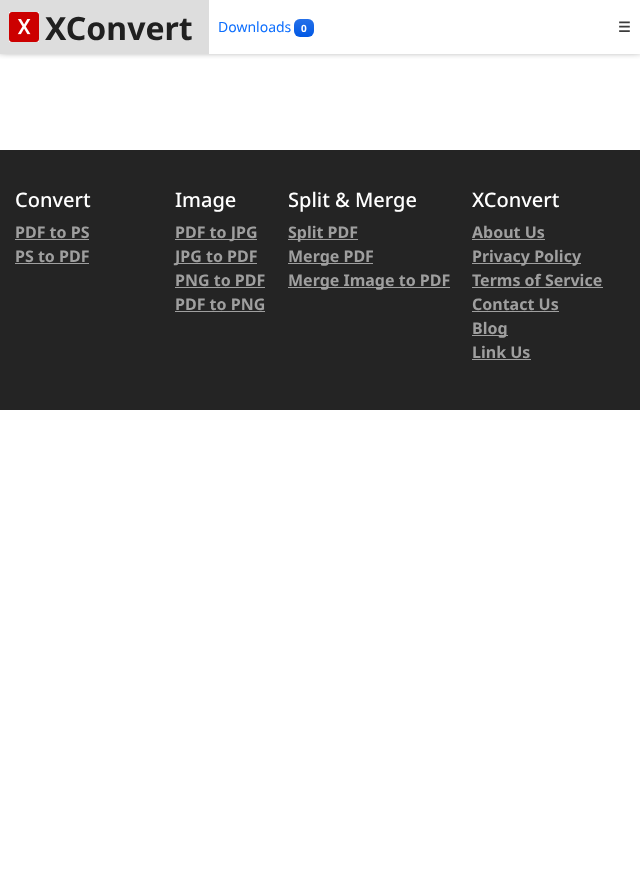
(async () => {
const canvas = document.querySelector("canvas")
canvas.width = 640
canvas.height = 893
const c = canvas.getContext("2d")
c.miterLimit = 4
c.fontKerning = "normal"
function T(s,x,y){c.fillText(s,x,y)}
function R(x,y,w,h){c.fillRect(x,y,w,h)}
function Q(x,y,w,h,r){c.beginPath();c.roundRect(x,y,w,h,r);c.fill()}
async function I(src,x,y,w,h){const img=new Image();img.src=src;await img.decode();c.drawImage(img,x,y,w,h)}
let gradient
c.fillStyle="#fff"
R(0,0,640,893)
c.save()
c.beginPath()
c.rect(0,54,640,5)
c.clip()
c.fillStyle="#000"
c.filter="blur(5px)"
c.beginPath()
c.rect(-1,-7,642,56)
c.fill()
c.filter="none"
c.restore()
c.fillStyle="#ddd"
R(0,0,209,54)
await I("1.png",9,12,30,30)
c.font="bold 32px Noto Sans"
c.fillStyle="#202020"
T("XConvert",45,40)
c.font="14px Noto Sans"
c.fillStyle="#0d6efd"
T("Downloads",218,32)
c.fillStyle="#0058e5"
Q(294,19,20,18,6)
gradient = c.createLinearGradient(304,19,304,37)
gradient.addColorStop(0,"#ffffff26")
gradient.addColorStop(1,"#ffffff00")
c.fillStyle = gradient
Q(294,19,20,18,6)
c.font="bold 10px Noto Sans"
c.fillStyle="#fff"
T("0",301,32)
c.font="bold 14px DejaVu Sans"
c.fillStyle="#3b3b3b"
T("☰",618,32)
c.fillStyle="#242424"
R(0,150,640,260)
c.font="500 20px Noto Sans"
c.fillStyle="#fff"
T("Convert",15,207)
c.font="bold 16px Noto Sans"
c.fillStyle="#9f9f9f"
T("PDF to PS",15,238)
R(15,239,74,1)
T("PS to PDF",15,262)
R(15,263,74,1)
c.font="500 20px Noto Sans"
c.fillStyle="#fff"
T("Image",175,207)
c.fillStyle="#9f9f9f"
R(175,239,82,1)
c.font="bold 16px Noto Sans"
T("PDF to JPG",175,238)
R(175,263,82,1)
T("JPG to PDF",175,262)
T("PNG to PDF",175,286)
R(175,287,90,1)
T("PDF to PNG",175,310)
R(175,311,90,1)
c.font="500 20px Noto Sans"
c.fillStyle="#fff"
T("Split & Merge",288,207)
c.fillStyle="#9f9f9f"
R(288,239,70,1)
c.font="bold 16px Noto Sans"
T("Split PDF",288,238)
R(288,263,85,1)
T("Merge PDF",288,262)
R(288,287,162,1)
T("Merge Image to PDF",288,286)
c.font="500 20px Noto Sans"
c.fillStyle="#fff"
T("XConvert",472,207)
c.font="bold 16px Noto Sans"
c.fillStyle="#9f9f9f"
T("About Us",472,238)
R(472,239,73,1)
R(472,263,109,1)
T("Privacy Policy",472,262)
T("Terms of Service",472,286)
R(472,287,131,1)
T("Contact Us",472,310)
R(472,311,87,1)
R(472,335,36,1)
T("Blog",472,334)
T("Link Us",472,358)
R(472,359,59,1)
})()
